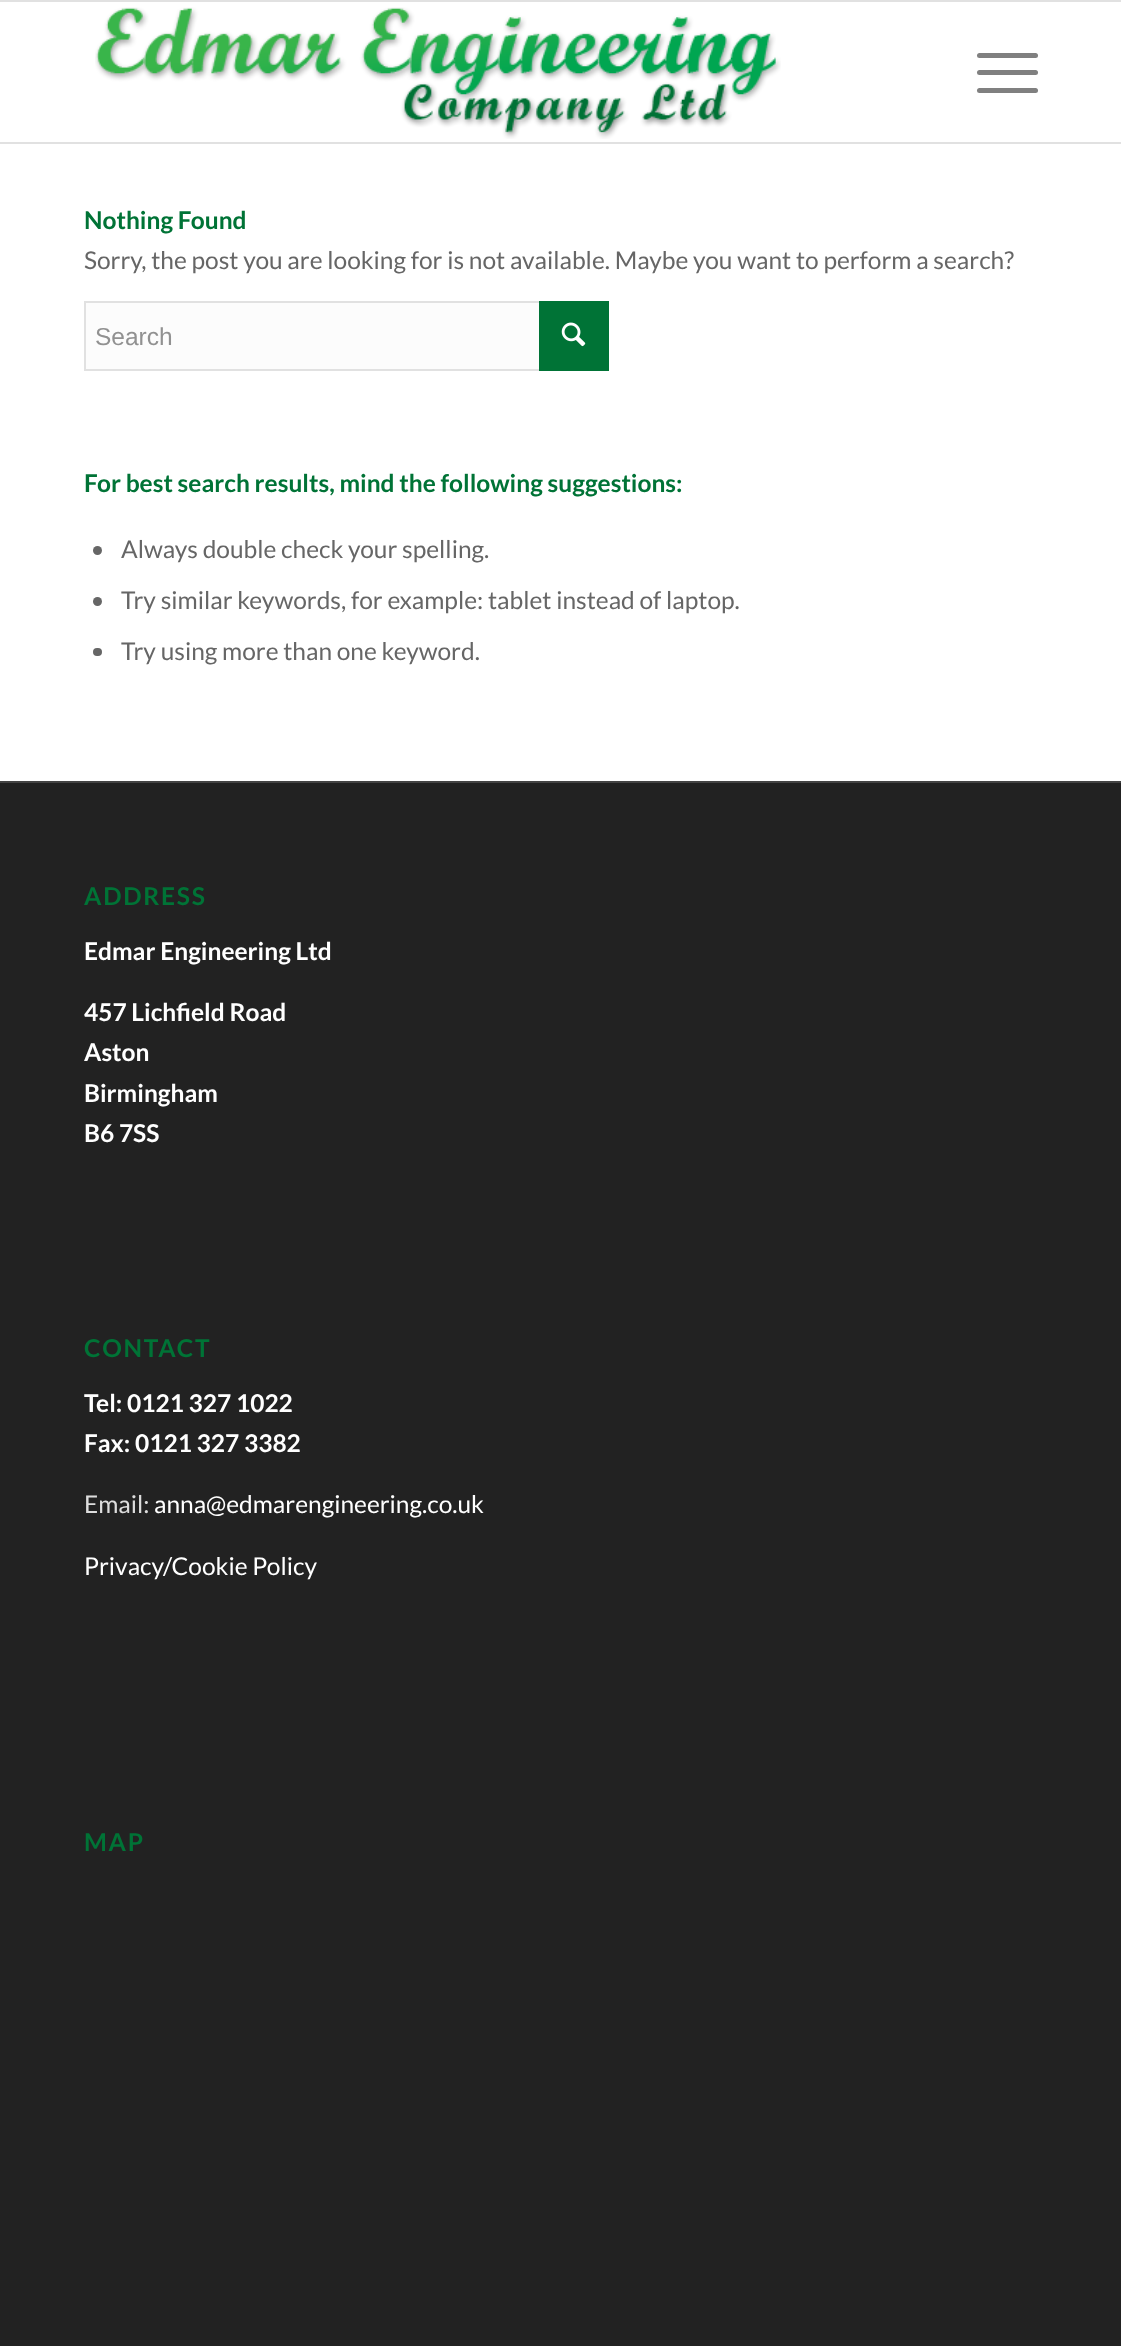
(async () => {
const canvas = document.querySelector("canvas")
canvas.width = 1121
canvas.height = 2346
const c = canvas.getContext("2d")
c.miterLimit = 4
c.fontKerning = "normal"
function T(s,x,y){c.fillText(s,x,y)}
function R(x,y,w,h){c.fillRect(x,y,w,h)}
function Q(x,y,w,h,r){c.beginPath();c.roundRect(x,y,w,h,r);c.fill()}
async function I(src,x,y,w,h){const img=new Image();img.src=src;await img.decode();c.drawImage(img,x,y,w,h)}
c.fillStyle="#fff"
R(0,0,1121,2346)
c.fillStyle="#e1e1e1"
R(0,0,1121,2)
R(0,142,1121,2)
await I("1.png",95,7,686,132)
c.fillStyle="#808080"
Q(977,70,61,5,2.5)
Q(977,53,61,5,2.5)
Q(977,88,61,5,2.5)
c.font="bold 24.5px Lato"
c.fillStyle="#007336"
T("Nothing Found",84,229)
c.font="24.5px Lato"
c.fillStyle="#666"
T("Sorry, the post you are looking for is not available. Maybe you want to perform a search?",84,269)
c.fillStyle="#fcfcfc"
R(86,303,453,66)
c.strokeStyle="#e1e1e1"
c.lineWidth=2
c.strokeRect(85,302,523,68)
c.font="24.5px Liberation Sans"
c.fillStyle="#919191"
T("Search",95,345)
c.fillStyle="#007336"
R(539,301,70,70)
await I("2.png",561,322,25,25)
c.font="bold 24.5px Lato"
T("For best search results, mind the following suggestions:",84,492)
c.fillStyle="#666"
c.beginPath()
c.arc(97.5,550.5,4.5,0,7)
c.fill()
c.font="24.5px Lato"
T("Always double check your spelling.",121,558)
c.beginPath()
c.arc(97.5,601.5,4.5,0,7)
c.fill()
T("Try similar keywords, for example: tablet instead of laptop.",121,609)
Q(93,648,9,8,4)
T("Try using more than one keyword.",121,660)
c.fillStyle="#222"
R(0,783,1121,1563)
c.fillStyle="#444"
R(0,781,1121,2)
c.letterSpacing="1.75px"
c.font="bold 24.5px Lato"
c.fillStyle="#007336"
T("ADDRESS",84,905)
c.letterSpacing="0px"
c.fillStyle="#fff"
T("Edmar Engineering Ltd",84,960)
T("457 Lichfield Road",84,1021)
T("Aston",84,1061)
T("Birmingham",84,1102)
T("B6 7SS",84,1142)
c.letterSpacing="1.75px"
c.fillStyle="#007336"
T("CONTACT",84,1357)
c.letterSpacing="0px"
c.fillStyle="#fff"
T("Tel: 0121 327 1022",84,1412)
T("Fax: 0121 327 3382",84,1452)
c.font="24.5px Lato"
c.fillStyle="#ddd"
T("Email:",84,1513)
c.fillStyle="#fff"
T("anna@edmarengineering.co.uk",154,1513)
T("Privacy/Cookie Policy",84,1575)
c.letterSpacing="1.75px"
c.font="bold 24.5px Lato"
c.fillStyle="#007336"
T("MAP",84,1851)
})()
